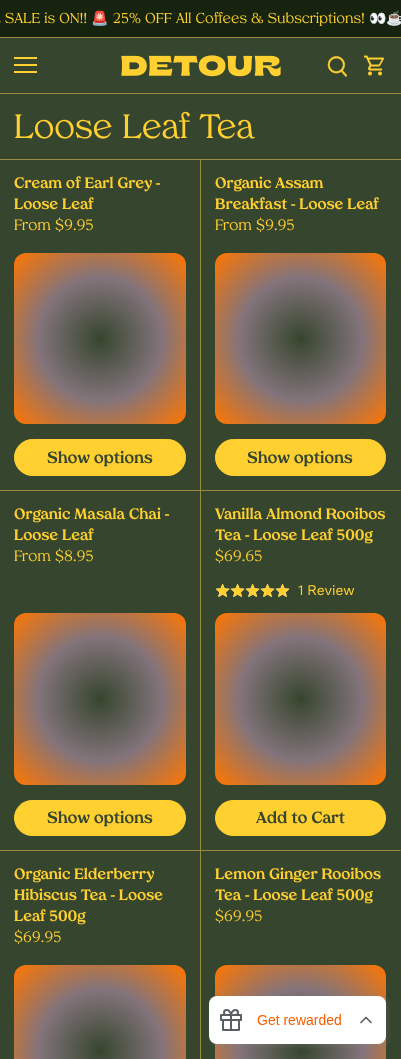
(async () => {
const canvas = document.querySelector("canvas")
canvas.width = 401
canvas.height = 1059
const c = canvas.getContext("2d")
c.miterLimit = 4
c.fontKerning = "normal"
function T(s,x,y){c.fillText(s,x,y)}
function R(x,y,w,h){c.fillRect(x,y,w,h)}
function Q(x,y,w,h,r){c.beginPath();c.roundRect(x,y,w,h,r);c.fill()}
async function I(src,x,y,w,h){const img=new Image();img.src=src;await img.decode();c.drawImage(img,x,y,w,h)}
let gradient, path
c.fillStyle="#36462e"
R(0,0,401,1059)
c.fillStyle="#16240f"
R(0,0,401,37)
c.fillStyle="#998b42"
R(0,37,401,1)
await I("1.png",0,12,87,12)
c.font="14px Noto Color Emoji"
c.fillStyle="#ffd030"
T("🚨",91,23)
await I("2.png",113,12,251,14)
T("👀☕️",369,23)
c.fillStyle="#998b42"
R(0,93,401,1)
c.fillStyle="#ffd030"
R(14,57,23,2)
R(14,64,23,2)
R(14,71,23,2)
await I("3.png",121,55,160,22)
await I("4.png",327,56,21,21)
await I("5.png",364,55,20,21)
c.fillStyle="#998b42"
R(0,159,401,1)
await I("6.png",15,111,240,28)
R(200,160,1,899)
R(0,490,201,1)
await I("7.png",14,176,147,16)
await I("8.png",14,197,80,13)
await I("9.png",14,219,37,12)
await I("10.png",55,217,38,16)
gradient = c.createRadialGradient(100,339,0,100,339,121)
gradient.addColorStop(0,"#36462e")
gradient.addColorStop(.51,"#83747b")
gradient.addColorStop(1,"#ff7600")
c.fillStyle = gradient
Q(14,253,172,171,12)
c.fillStyle="#ffd030"
c.beginPath()
c.roundRect(14.5,439.5,171,36,18)
c.fill()
c.strokeStyle="#ffd030"
c.stroke()
await I("11.png",47,450,106,17)
c.fillStyle="#998b42"
path = new Path2D("M401 491h-200v-1h199z")
c.fill(path)
await I("12.png",215,176,109,16)
await I("13.png",215,197,164,13)
await I("9.png",215,219,37,12)
await I("10.png",256,217,38,16)
gradient = c.createRadialGradient(301,339,0,301,339,121)
gradient.addColorStop(0,"#36462e")
gradient.addColorStop(.51,"#83747b")
gradient.addColorStop(1,"#ff7600")
c.fillStyle = gradient
Q(215,253,171,171,12)
c.fillStyle="#ffd030"
c.beginPath()
c.roundRect(215.5,439.5,170,36,18)
c.fill()
c.stroke()
await I("11.png",247,450,106,17)
c.fillStyle="#998b42"
R(0,850,201,1)
await I("14.png",14,507,156,16)
await I("8.png",14,528,80,13)
await I("9.png",14,550,37,12)
await I("15.png",55,548,38,16)
gradient = c.createRadialGradient(100,699,0,100,699,122)
gradient.addColorStop(0,"#36462e")
gradient.addColorStop(.51,"#83747b")
gradient.addColorStop(1,"#ff7600")
c.fillStyle = gradient
Q(14,613,172,172,12)
c.fillStyle="#ffd030"
c.beginPath()
c.roundRect(14.5,800.5,171,35,17.5)
c.fill()
c.stroke()
await I("11.png",47,810,106,17)
c.fillStyle="#998b42"
path = new Path2D("M401 851h-200v-1h199z")
c.fill(path)
await I("16.png",214,507,172,13)
await I("17.png",215,528,158,16)
await I("18.png",215,548,47,16)
await I("19.png",215,584,75,13)
await I("20.png",215,584,75,13)
c.font="14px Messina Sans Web"
c.fillStyle="#ffd030"
T("1 Review",298,595)
gradient = c.createRadialGradient(301,699,0,301,699,121)
gradient.addColorStop(0,"#36462e")
gradient.addColorStop(.51,"#83747b")
gradient.addColorStop(1,"#ff7600")
c.fillStyle = gradient
Q(215,613,171,172,12)
c.fillStyle="#ffd030"
c.beginPath()
c.roundRect(215.5,800.5,170,35,17.5)
c.fill()
c.stroke()
await I("21.png",255,810,90,14)
await I("22.png",14,867,141,16)
await I("23.png",14,888,149,13)
await I("24.png",14,909,72,16)
await I("25.png",14,929,47,16)
gradient = c.createRadialGradient(100,1051,0,100,1051,121)
gradient.addColorStop(0,"#36462e")
gradient.addColorStop(.51,"#83747b")
gradient.addColorStop(1,"#ff7600")
c.fillStyle = gradient
Q(14,965,172,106,12)
await I("26.png",215,867,166,16)
await I("17.png",215,888,158,16)
await I("25.png",215,908,47,16)
gradient = c.createRadialGradient(301,1051,0,301,1051,121)
gradient.addColorStop(0,"#36462e")
gradient.addColorStop(.51,"#83747b")
gradient.addColorStop(1,"#ff7600")
c.fillStyle = gradient
Q(215,965,171,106,12)
await I("27.png",208,994,183,55)
})()
